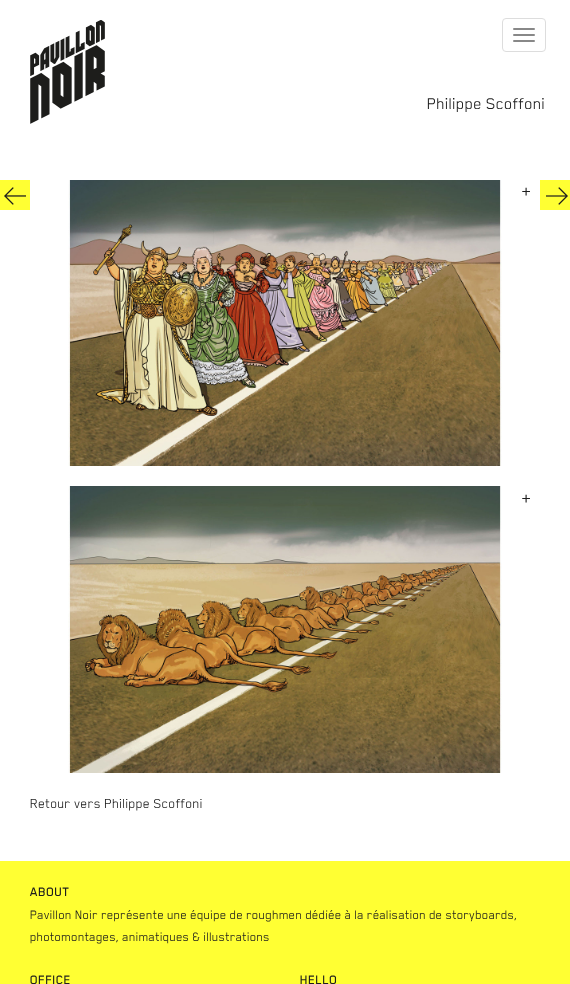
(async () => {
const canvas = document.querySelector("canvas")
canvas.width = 570
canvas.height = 984
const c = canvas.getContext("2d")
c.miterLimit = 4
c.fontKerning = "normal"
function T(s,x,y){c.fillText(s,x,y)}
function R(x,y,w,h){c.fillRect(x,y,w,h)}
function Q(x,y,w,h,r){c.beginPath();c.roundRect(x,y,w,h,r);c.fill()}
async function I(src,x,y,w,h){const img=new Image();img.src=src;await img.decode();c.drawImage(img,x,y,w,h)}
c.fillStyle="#fff"
R(0,0,570,984)
await I("1.png",30,20,75,104)
c.beginPath()
c.roundRect(502.5,18.5,43,33,3.5)
c.strokeStyle="#ddd"
c.stroke()
c.fillStyle="#888"
Q(513,28,22,2,1)
Q(513,34,22,2,1)
Q(513,40,22,2,1)
c.font="18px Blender"
c.fillStyle="#1d1d1d"
T("Philippe Scoffoni",427,109)
c.fillStyle="#ff3"
R(0,180,30,30)
await I("2.png",4,187,22,18)
R(540,180,30,30)
await I("3.png",546,187,22,18)
await I("4.png",30,180,510,286)
c.font="22px Blender"
c.fillStyle="#1d1d1d"
T("+",521,197)
await I("5.png",68,486,434,287)
T("+",521,504)
c.font="15px Blender"
T("Retour vers Philippe Scoffoni",30,808)
c.fillStyle="#ff3"
R(0,861,570,123)
c.letterSpacing="0.25px"
c.font="500 14px Blender"
c.fillStyle="#1d1d1d"
T("ABOUT",30,896)
c.letterSpacing="0px"
c.font="14px Blender"
T("Pavillon Noir représente une équipe de roughmen dédiée à la réalisation de storyboards,",30,919)
T("photomontages, animatiques & illustrations",30,941)
c.letterSpacing="0.25px"
c.font="500 14px Blender"
T("OFFICE",30,984)
T("HELLO",300,984)
})()
